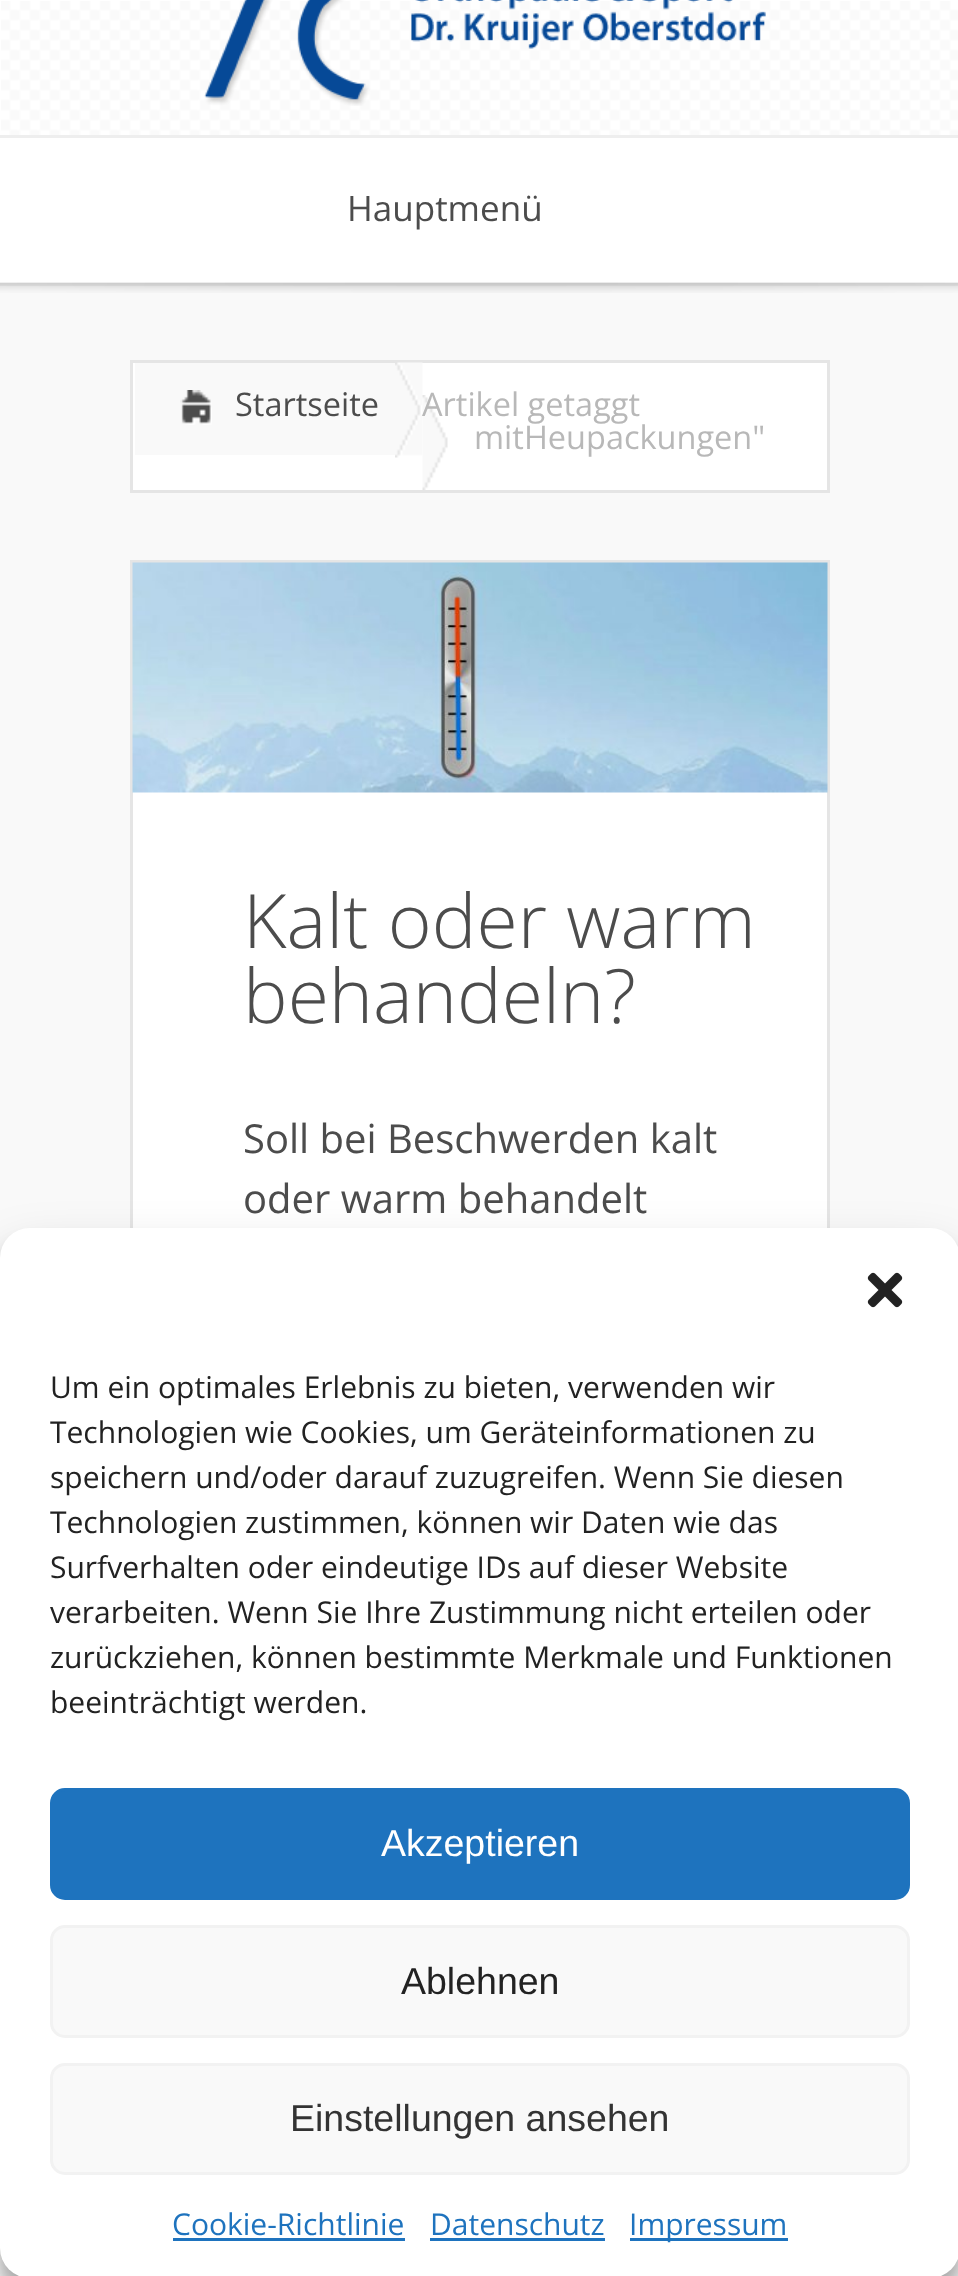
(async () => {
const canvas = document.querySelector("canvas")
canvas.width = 958
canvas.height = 2276
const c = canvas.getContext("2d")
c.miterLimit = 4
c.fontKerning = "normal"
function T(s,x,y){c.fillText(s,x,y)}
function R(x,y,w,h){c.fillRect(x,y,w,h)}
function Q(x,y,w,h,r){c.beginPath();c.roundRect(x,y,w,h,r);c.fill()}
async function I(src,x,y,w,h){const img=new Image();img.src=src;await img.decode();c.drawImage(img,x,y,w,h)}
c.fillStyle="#fff"
R(0,0,958,2276)
await I("1.png",1,1,957,134)
await I("2.png",204,0,562,106)
c.fillStyle="#eee"
R(0,135,958,3)
R(0,283,958,3)
c.font="35px Open Sans"
c.fillStyle="#4c4c4c"
T("Hauptmenü",347,221)
c.fillStyle="#f9f9f9"
R(0,286,958,972)
await I("3.png",0,282,958,11)
c.fillStyle="#fff"
c.beginPath()
c.rect(131.5,361.5,697,130)
c.fill()
c.strokeStyle="#e5e5e5"
c.lineWidth=3
c.stroke()
c.fillStyle="#f9f9f9"
R(135,363,260,92)
await I("4.png",180,390,32,35)
c.font="32.5px Open Sans"
c.fillStyle="#4c4c4c"
T("Startseite",235,416)
await I("5.png",395,362,28,96)
await I("6.png",422,395,26,95)
c.fillStyle="#b8b8b8"
T("Artikel getaggt",422,416)
T("mitHeupackungen\"",474,449)
c.fillStyle="#fff"
R(133,792,694,436)
c.strokeRect(131.5,561.5,697,892)
await I("7.png",132,562,696,231)
c.font="300 75px Open Sans"
c.fillStyle="#4c4c4c"
T("Kalt oder warm",243,948)
T("behandeln?",243,1023)
c.font="40px Open Sans"
T("Soll bei Beschwerden kalt",243,1153)
T("oder warm behandelt",243,1213)
c.fillStyle="#0000003b"
c.filter="blur(7.5px)"
c.beginPath()
c.roundRect(0,1243,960,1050,30)
c.fill()
c.filter="none"
c.fillStyle="#00000030"
c.filter="blur(25px)"
c.beginPath()
c.roundRect(0,1253,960,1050,30)
c.fill()
c.filter="none"
c.fillStyle="#fff"
Q(0,1228,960,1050,30)
await I("8.png",867,1272,36,36)
c.font="30px Open Sans"
c.fillStyle="#222"
T("Um ein optimales Erlebnis zu bieten, verwenden wir",50,1398)
T("Technologien wie Cookies, um Geräteinformationen zu",50,1443)
T("speichern und/oder darauf zuzugreifen. Wenn Sie diesen",50,1488)
T("Technologien zustimmen, können wir Daten wie das",50,1533)
T("Surfverhalten oder eindeutige IDs auf dieser Website",50,1578)
T("verarbeiten. Wenn Sie Ihre Zustimmung nicht erteilen oder",50,1623)
T("zurückziehen, können bestimmte Merkmale und Funktionen",50,1668)
T("beeinträchtigt werden.",50,1713)
c.fillStyle="#1e73be"
c.beginPath()
c.roundRect(51.5,1789.5,857,109,13.5)
c.fill()
c.strokeStyle="#1e73be"
c.stroke()
c.font="37.5px Liberation Sans"
c.fillStyle="#fff"
T("Akzeptieren",381,1856)
c.fillStyle="#f9f9f9"
c.beginPath()
c.roundRect(51.5,1926.5,857,110,13.5)
c.fill()
c.strokeStyle="#f2f2f2"
c.stroke()
c.fillStyle="#222"
T("Ablehnen",401,1994)
c.fillStyle="#f9f9f9"
c.beginPath()
c.roundRect(51.5,2064.5,857,109,13.5)
c.fill()
c.stroke()
c.fillStyle="#333"
T("Einstellungen ansehen",290,2131)
c.font="30px Open Sans"
c.fillStyle="#1e73be"
T("Cookie-Richtlinie",172,2235)
R(173,2238,232,3)
T("Datenschutz",430,2235)
R(430,2238,175,3)
R(630,2238,158,3)
T("Impressum",629,2235)
})()
